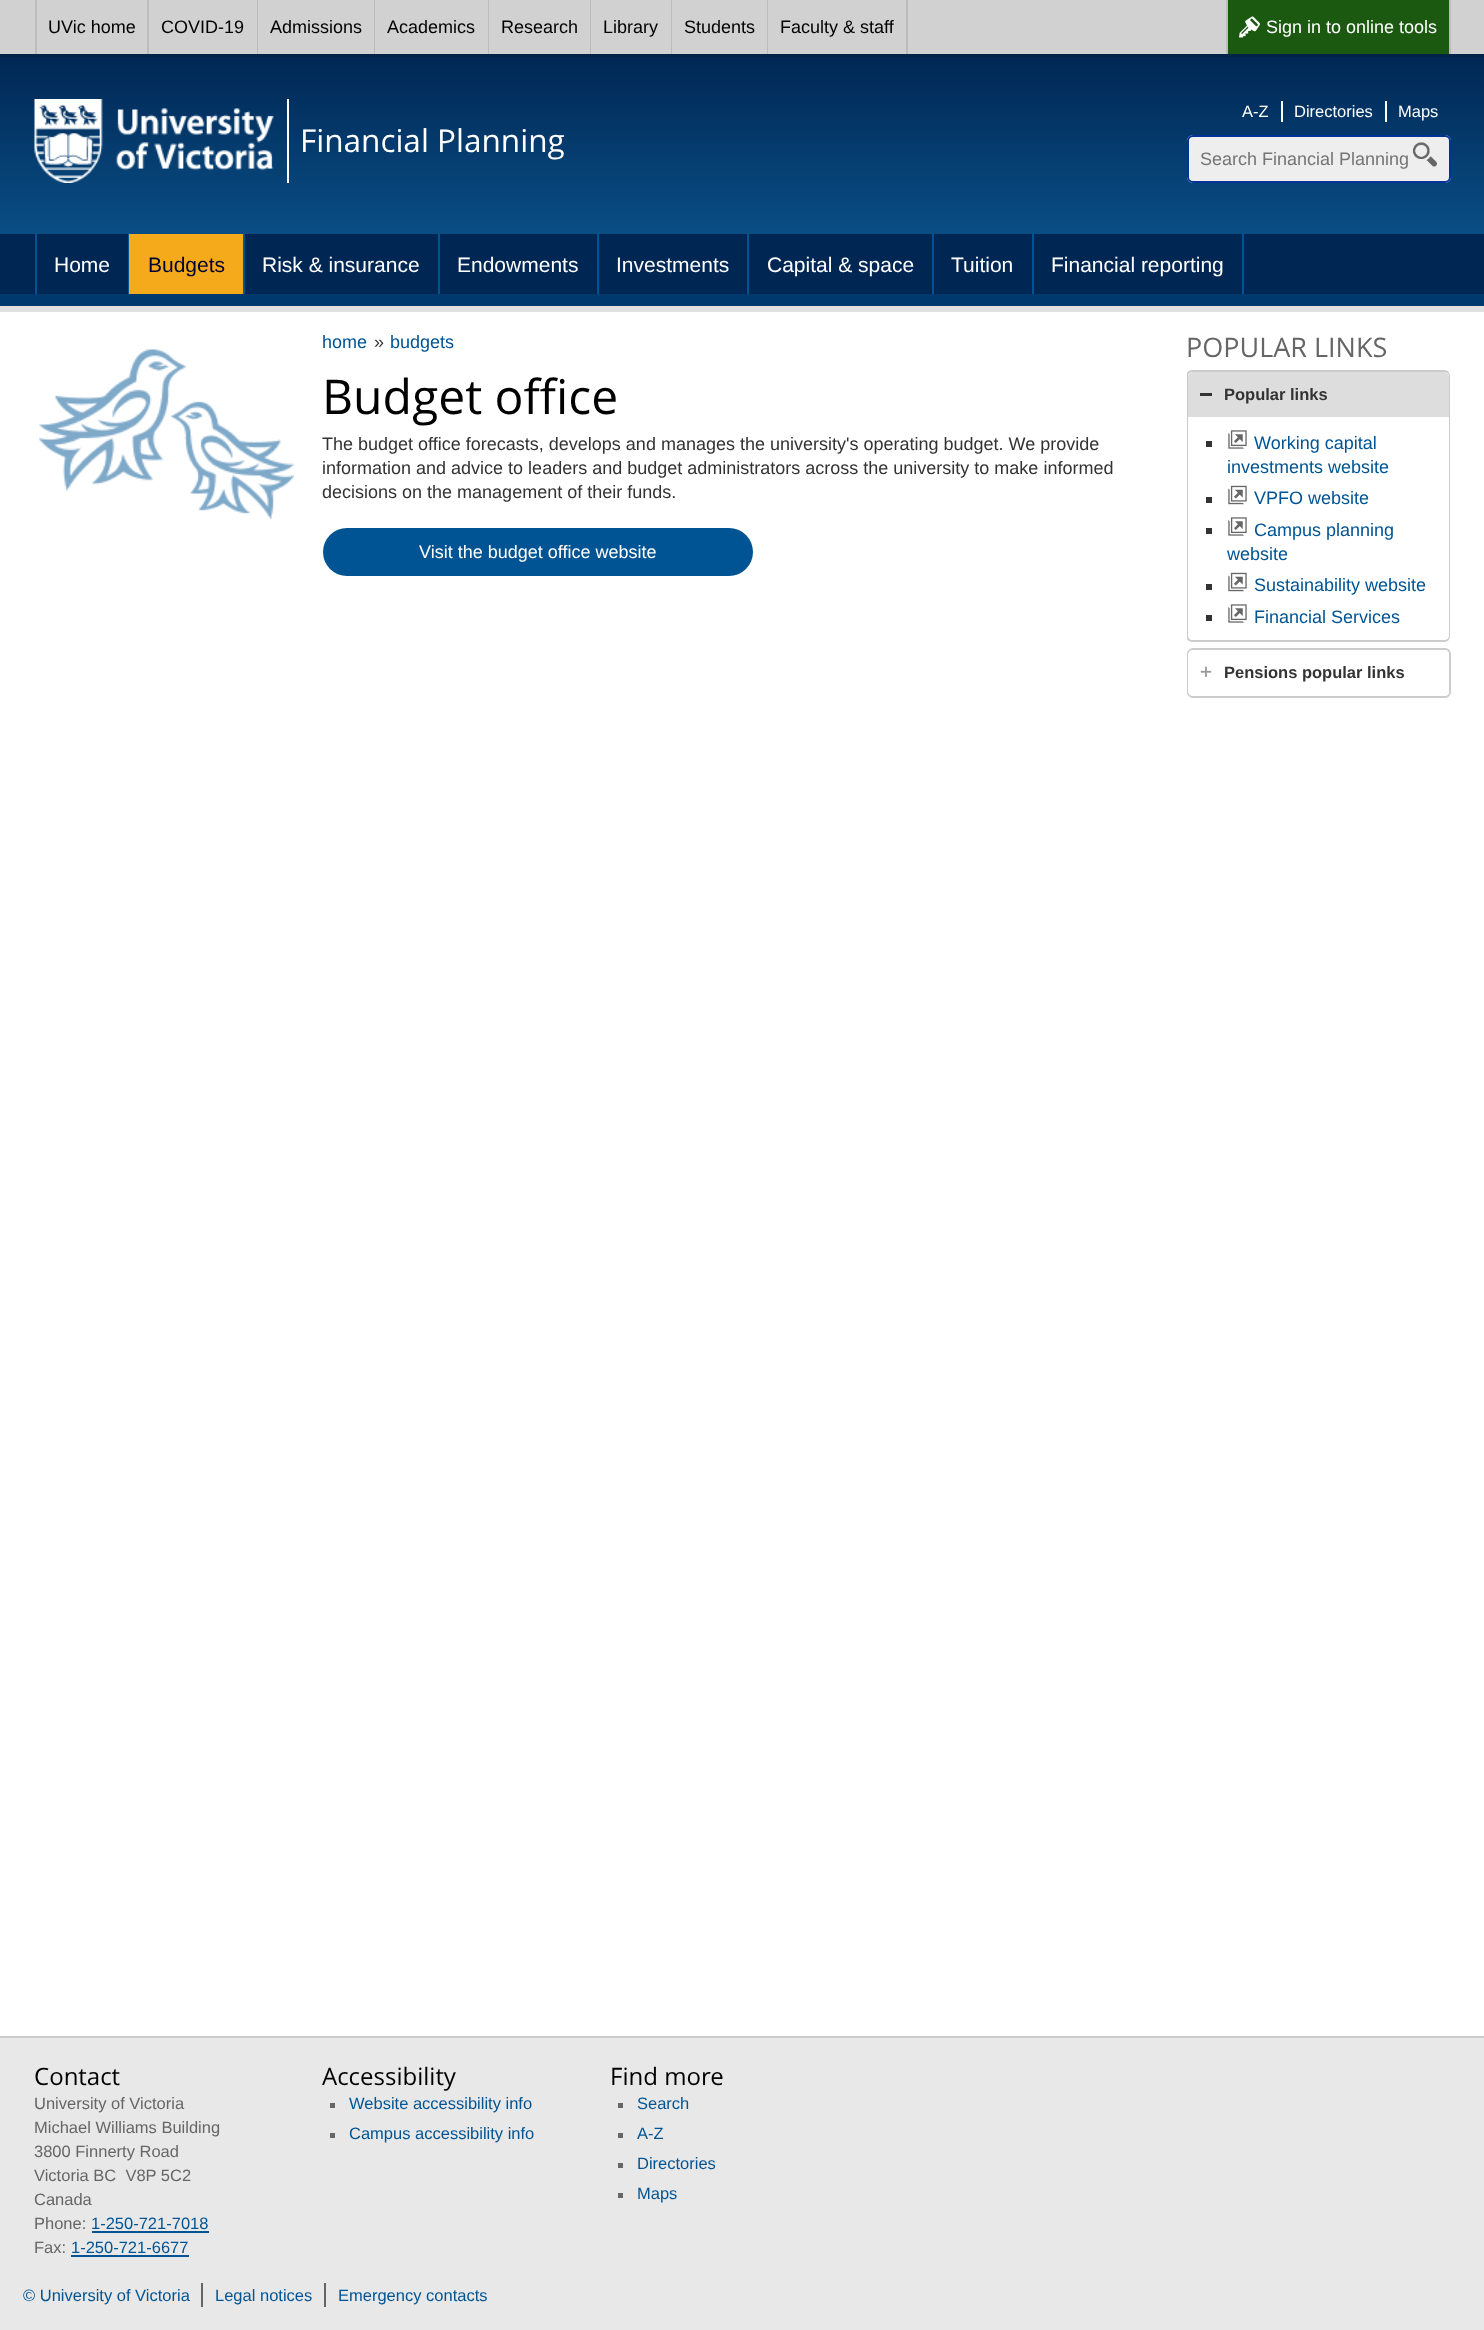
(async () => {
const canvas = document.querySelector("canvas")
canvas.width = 1484
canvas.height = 2330
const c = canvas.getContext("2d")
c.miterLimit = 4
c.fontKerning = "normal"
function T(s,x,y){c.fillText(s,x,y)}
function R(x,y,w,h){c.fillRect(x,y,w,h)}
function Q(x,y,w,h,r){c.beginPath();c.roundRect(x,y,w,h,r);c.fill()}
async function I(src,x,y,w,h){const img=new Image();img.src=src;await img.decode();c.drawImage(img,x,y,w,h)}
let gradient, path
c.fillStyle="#fff"
R(0,0,1484,2330)
c.strokeStyle="#e0e0e0"
c.lineWidth=6
c.strokeRect(-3,51,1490,258)
c.strokeStyle="#00234a"
c.lineWidth=3
c.strokeRect(-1.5,-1.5,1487,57)
c.fillStyle="#d1d1d1"
R(0,0,1484,54)
c.fillStyle="#bcbcbc"
R(147,0,2,54)
R(35,0,2,54)
c.font="18px Liberation Sans"
c.fillStyle="#000"
T("UVic home",48,33)
c.fillStyle="#bcbcbc"
R(257,0,1,54)
c.fillStyle="#000"
T("COVID-19",161,33)
c.fillStyle="#bcbcbc"
R(374,0,1,54)
c.fillStyle="#000"
T("Admissions",270,33)
c.fillStyle="#bcbcbc"
R(488,0,1,54)
c.fillStyle="#000"
T("Academics",387,33)
c.fillStyle="#bcbcbc"
R(590,0,1,54)
c.fillStyle="#000"
T("Research",501,33)
c.fillStyle="#bcbcbc"
R(671,0,1,54)
c.fillStyle="#000"
T("Library",603,33)
c.fillStyle="#bcbcbc"
R(767,0,1,54)
c.fillStyle="#000"
T("Students",684,33)
c.fillStyle="#bcbcbc"
R(906,0,2,54)
c.fillStyle="#000"
T("Faculty & staff",780,33)
c.fillStyle="#1b5911"
R(1228,0,221,54)
c.fillStyle="#bcbcbc"
R(1449,0,2,54)
R(1226,0,2,54)
await I("1.png",1239,16,21,22)
c.fillStyle="#fff"
T("Sign in to online tools",1266,33)
gradient = c.createLinearGradient(743,54,743,306)
gradient.addColorStop(0,"#002754")
gradient.addColorStop(1,"#0d5d98")
c.fillStyle = gradient
R(0,57,1484,177)
await I("2.png",34,99,240,84)
c.font="16.5px Liberation Sans"
c.fillStyle="#fff"
T("A-Z",1242,117)
T("Directories",1294,117)
R(1281,101,2,21)
T("Maps",1398,117)
R(1385,101,2,21)
R(287,99,2,84)
c.font="31.5px Open Sans"
T("Financial Planning",300,152)
c.fillStyle="#eee"
Q(1187,135,264,48,6)
await I("3.png",1413,142,24,25)
c.beginPath()
c.roundRect(1188,136,262,46,5)
c.strokeStyle="#039"
c.lineWidth=2
c.stroke()
c.font="18px Liberation Sans"
c.fillStyle="#757575"
T("Search Financial Planning",1200,165)
c.fillStyle="#002754"
R(0,234,1484,60)
c.fillStyle="#005493"
R(128,234,1,60)
R(35,234,2,60)
c.font="21px Liberation Sans"
c.fillStyle="#fff"
T("Home",54,272)
c.fillStyle="#f5aa1c"
R(129,234,114,60)
c.fillStyle="#005493"
R(243,234,2,60)
c.fillStyle="#003"
T("Budgets",148,272)
c.fillStyle="#005493"
R(438,234,2,60)
c.fillStyle="#fff"
T("Risk & insurance",262,272)
c.fillStyle="#005493"
R(597,234,2,60)
c.fillStyle="#fff"
T("Endowments",457,272)
c.fillStyle="#005493"
R(747,234,2,60)
c.fillStyle="#fff"
T("Investments",616,272)
c.fillStyle="#005493"
R(932,234,2,60)
c.fillStyle="#fff"
T("Capital & space",767,272)
c.fillStyle="#005493"
R(1032,234,2,60)
c.fillStyle="#fff"
T("Tuition",951,272)
c.fillStyle="#005493"
R(1242,234,2,60)
c.fillStyle="#fff"
T("Financial reporting",1051,272)
c.fillStyle="#00396d"
R(0,294,1484,12)
await I("4.png",39,349,255,170)
c.font="18px Liberation Sans"
c.fillStyle="#005493"
T("home",322,348)
c.fillStyle="#333"
T("»",374,348)
c.fillStyle="#005493"
T("budgets",390,348)
c.font="48px Open Sans"
c.fillStyle="#000"
T("Budget office",322,414)
c.font="18px Liberation Sans"
c.fillStyle="#333"
T("The budget office forecasts, develops and manages the university's operating budget. We provide",322,450)
T("information and advice to leaders and budget administrators across the university to make informed",322,474)
T("decisions on the management of their funds.",322,498)
c.fillStyle="#005493"
Q(323,528,430,48,24)
c.fillStyle="#fff"
T("Visit the budget office website",419,558)
c.font="27px Open Sans"
c.fillStyle="#666"
T("POPULAR LINKS",1186,357)
c.save()
c.beginPath()
c.rect(1187,330,264,368)
c.clip()
c.fillStyle="#ccc"
path = new Path2D("M1192 370h252c4 0 6 3 6 6v41h-264v-41c0-3 3-6 6-6zm0 2h252c3 0 5 2 5 4v41h-261v-41c0-2 2-4 4-4z")
c.fill(path,"evenodd")
c.restore()
c.fillStyle="#ddd"
c.beginPath()
c.roundRect(1188,372,261,45,[5,5,0,0])
c.fill()
c.fillStyle="#333"
R(1200,393,12,3)
c.font="bold 16.5px Liberation Sans"
T("Popular links",1224,400)
c.save()
c.beginPath()
c.rect(1187,330,264,368)
c.clip()
c.fillStyle="#ccc"
path = new Path2D("M1186 417h264v219c0 3-2 6-6 6h-252c-3 0-6-3-6-6zm2 0h261v219c0 2-2 4-5 4h-252c-2 0-4-2-4-4z")
c.fill(path,"evenodd")
c.restore()
R(1206,441,6,6)
await I("5.png",1228,430,19,19)
c.font="18px Liberation Sans"
c.fillStyle="#005493"
T("Working capital",1254,449)
T("investments website",1227,473)
c.fillStyle="#333"
R(1206,497,6,6)
await I("6.png",1228,485,19,20)
c.fillStyle="#005493"
T("VPFO website",1254,504)
c.fillStyle="#333"
R(1206,528,6,6)
await I("5.png",1228,517,19,19)
c.fillStyle="#005493"
T("Campus planning",1254,536)
T("website",1227,560)
c.fillStyle="#333"
R(1206,584,6,6)
await I("6.png",1228,572,19,20)
c.fillStyle="#005493"
T("Sustainability website",1254,591)
c.fillStyle="#333"
R(1206,615,6,6)
await I("5.png",1228,604,19,19)
c.fillStyle="#005493"
T("Financial Services",1254,623)
c.beginPath()
c.roundRect(1188,649,262,48,5)
c.strokeStyle="#ccc"
c.stroke()
c.fillStyle="#fff"
Q(1188,650,261,46,5)
await I("7.png",1200,666,12,11)
c.font="bold 16.5px Liberation Sans"
c.fillStyle="#333"
T("Pensions popular links",1224,678)
c.fillStyle="#e8e8e8"
R(0,2038,1484,292)
c.fillStyle="#ccc"
R(0,2036,1484,2)
c.font="24px Open Sans"
c.fillStyle="#000"
T("Contact",34,2085)
c.font="16.5px Liberation Sans"
c.fillStyle="#666"
T("University of Victoria",34,2109)
T("Michael Williams Building",34,2133)
T("3800 Finnerty Road",34,2157)
T("Victoria BC  V8P 5C2",34,2181)
T("Canada",34,2205)
T("Phone:",34,2229)
c.fillStyle="#005493"
T("1-250-721-7018",91,2229)
R(92,2231,117,2)
c.fillStyle="#666"
T("Fax:",34,2253)
c.fillStyle="#005493"
T("1-250-721-6677",71,2253)
R(71,2255,118,2)
c.font="24px Open Sans"
c.fillStyle="#000"
T("Accessibility",322,2085)
c.fillStyle="#666"
R(330,2103,5,5)
c.font="16.5px Liberation Sans"
c.fillStyle="#005493"
T("Website accessibility info",349,2109)
c.fillStyle="#666"
R(330,2133,5,5)
c.fillStyle="#005493"
T("Campus accessibility info",349,2139)
c.font="24px Open Sans"
c.fillStyle="#000"
T("Find more",610,2085)
c.fillStyle="#666"
R(618,2103,5,5)
c.font="16.5px Liberation Sans"
c.fillStyle="#005493"
T("Search",637,2109)
c.fillStyle="#666"
R(618,2133,5,5)
c.fillStyle="#005493"
T("A-Z",637,2139)
c.fillStyle="#666"
R(618,2163,5,5)
c.fillStyle="#005493"
T("Directories",637,2169)
c.fillStyle="#666"
R(618,2193,5,5)
c.fillStyle="#005493"
T("Maps",637,2199)
c.save()
c.beginPath()
c.rect(23,2283,1440,24)
c.clip()
T("© University of Victoria",23,2301)
c.restore()
c.fillStyle="#666"
R(201,2283,2,24)
c.fillStyle="#005493"
T("Legal notices",215,2301)
c.fillStyle="#666"
R(324,2283,2,24)
c.fillStyle="#005493"
T("Emergency contacts",338,2301)
})()
